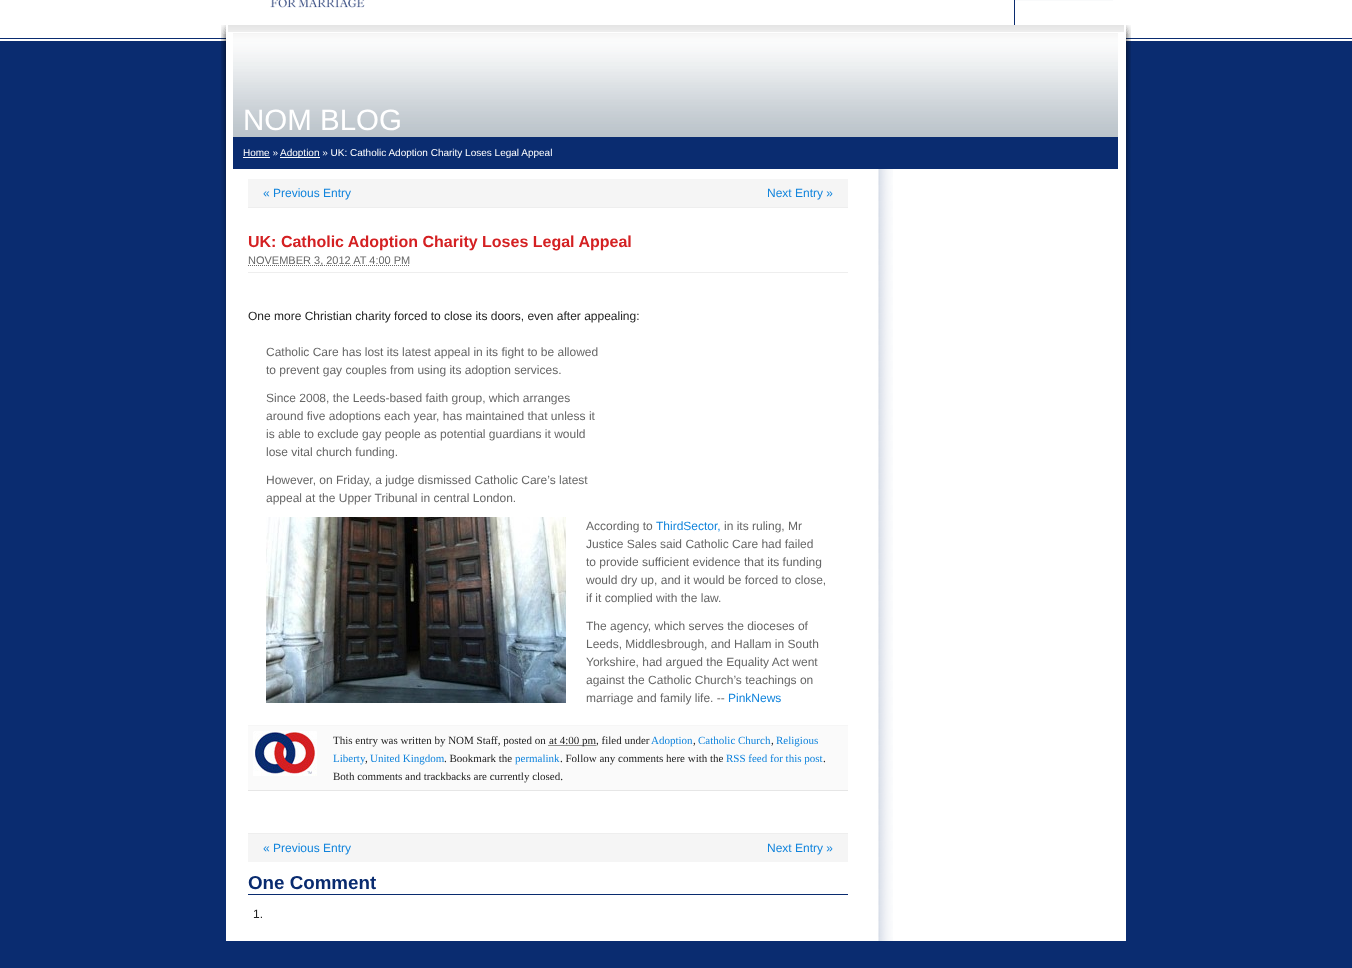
(async () => {
const canvas = document.querySelector("canvas")
canvas.width = 1352
canvas.height = 968
const c = canvas.getContext("2d")
c.miterLimit = 4
c.fontKerning = "normal"
function T(s,x,y){c.fillText(s,x,y)}
function R(x,y,w,h){c.fillRect(x,y,w,h)}
async function I(src,x,y,w,h){const img=new Image();img.src=src;await img.decode();c.drawImage(img,x,y,w,h)}
let path
c.fillStyle="#0a2c70"
R(0,0,1352,968)
await I("1.png",0,0,1352,41)
await I("2.png",270,0,95,8)
c.fillStyle="#f9fafb"
R(1014,0,99,1)
c.fillStyle="#092b6f"
R(1014,0,1,25)
await I("3.png",221,25,910,600)
c.fillStyle="#fff"
R(226,32,900,909)
await I("4.png",233,33,885,104)
c.font="29.5px Liberation Sans"
T("NOM BLOG",243,130)
c.fillStyle="#0a2c70"
R(233,137,885,32)
c.font="10px Liberation Sans"
c.fillStyle="#fff"
T("Home »",243,156)
R(243,157,27,1)
R(280,157,40,1)
T("Adoption » UK: Catholic Adoption Charity Loses Legal Appeal",280,156)
await I("5.png",878,169,15,772)
c.fillStyle="#f5f5f5"
R(248,179,600,28)
c.fillStyle="#eee"
R(248,207,600,1)
c.font="12px Liberation Sans"
c.fillStyle="#1184dc"
T("« Previous Entry",263,197)
T("Next Entry »",767,197)
c.font="bold 16px Liberation Sans"
c.fillStyle="#d42022"
T("UK: Catholic Adoption Charity Loses Legal Appeal",248,247)
c.fillStyle="#eee"
R(248,272,600,1)
path = new Path2D("M248 265.5h162")
c.strokeStyle="#666"
c.setLineDash([1,1])
c.stroke(path)
c.font="11px Liberation Sans"
c.fillStyle="#666"
T("NOVEMBER 3, 2012 AT 4:00 PM",248,264)
c.font="12px Liberation Sans"
c.fillStyle="#222"
T("One more Christian charity forced to close its doors, even after appealing:",248,320)
c.fillStyle="#666"
T("Catholic Care has lost its latest appeal in its fight to be allowed",266,356)
T("to prevent gay couples from using its adoption services.",266,374)
T("Since 2008, the Leeds-based faith group, which arranges",266,402)
T("around five adoptions each year, has maintained that unless it",266,420)
T("is able to exclude gay people as potential guardians it would",266,438)
T("lose vital church funding.",266,456)
T("However, on Friday, a judge dismissed Catholic Care’s latest",266,484)
T("appeal at the Upper Tribunal in central London.",266,502)
await I("6.png",266,517,300,186)
T("According to",586,530)
c.fillStyle="#1184dc"
T("ThirdSector,",656,530)
c.fillStyle="#666"
T("in its ruling, Mr",724,530)
T("Justice Sales said Catholic Care had failed",586,548)
T("to provide sufficient evidence that its funding",586,566)
T("would dry up, and it would be forced to close,",586,584)
T("if it complied with the law.",586,602)
T("The agency, which serves the dioceses of",586,630)
T("Leeds, Middlesbrough, and Hallam in South",586,648)
T("Yorkshire, had argued the Equality Act went",586,666)
T("against the Catholic Church’s teachings on",586,684)
T("marriage and family life. --",586,702)
c.fillStyle="#1184dc"
T("PinkNews",728,702)
c.fillStyle="#fafafa"
R(248,726,600,64)
c.fillStyle="#f6f6f6"
R(248,725,600,1)
c.fillStyle="#e6e6e6"
R(248,790,600,1)
await I("7.png",253,731,64,45)
c.font="11px Liberation Serif"
c.fillStyle="#222"
T("This entry was written by NOM Staff, posted on",333,744)
path = new Path2D("M548.5 745.5h47")
c.strokeStyle="#222"
c.stroke(path)
T("at 4:00 pm",549,744)
T(", filed under",596,744)
c.fillStyle="#1184dc"
T("Adoption",651,744)
c.fillStyle="#222"
T(",",693,744)
c.fillStyle="#1184dc"
T("Catholic Church",698,744)
c.fillStyle="#222"
T(",",771,744)
c.fillStyle="#1184dc"
T("Religious",776,744)
T("Liberty",333,762)
T("United Kingdom",370,762)
c.fillStyle="#222"
T(". Bookmark the",444,762)
c.fillStyle="#1184dc"
T("permalink",515,762)
c.fillStyle="#222"
T(". Follow any comments here with the",560,762)
c.fillStyle="#1184dc"
T("RSS feed for this post",726,762)
c.fillStyle="#222"
T(",",365,762)
T(".",823,762)
T("Both comments and trackbacks are currently closed.",333,780)
c.fillStyle="#f5f5f5"
R(248,834,600,28)
c.fillStyle="#eee"
R(248,833,600,1)
c.font="12px Liberation Sans"
c.fillStyle="#1184dc"
T("« Previous Entry",263,852)
T("Next Entry »",767,852)
c.fillStyle="#092b6f"
R(248,894,600,1)
c.font="bold 18.75px Liberation Sans"
T("One Comment",248,889)
c.font="12px Liberation Sans"
c.fillStyle="#222"
T("1.",253,918)
})()
